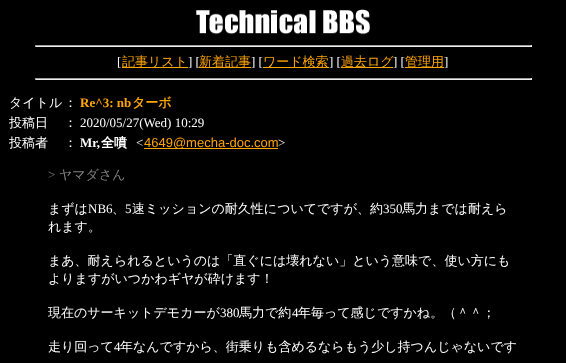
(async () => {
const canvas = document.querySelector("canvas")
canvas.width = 566
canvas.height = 363
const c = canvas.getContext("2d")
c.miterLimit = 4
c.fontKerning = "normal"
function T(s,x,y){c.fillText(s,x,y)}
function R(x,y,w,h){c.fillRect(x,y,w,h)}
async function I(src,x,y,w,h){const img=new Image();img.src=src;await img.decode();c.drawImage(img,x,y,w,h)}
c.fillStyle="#000"
R(0,0,566,363)
await I("1.png",196,9,174,26)
c.fillStyle="#9f9f9f"
R(35,45,497,1)
c.fillStyle="#eee"
R(531,45,1,2)
R(35,46,497,1)
c.fillStyle="#9f9f9f"
R(35,45,1,2)
c.font="13px Liberation Serif"
c.fillStyle="#fff"
T("[",117,66)
c.fillStyle="#ffa500"
R(122,67,66,1)
c.font="500 13px WenQuanYi Zen Hei"
T("記事リスト",122,66)
c.font="13px Liberation Serif"
c.fillStyle="#fff"
T("] [",188,66)
c.fillStyle="#ffa500"
R(199,67,52,1)
c.font="500 13px WenQuanYi Zen Hei"
T("新着記事",199,66)
c.font="13px Liberation Serif"
c.fillStyle="#fff"
T("] [",251,66)
c.fillStyle="#ffa500"
R(263,67,66,1)
c.font="500 13px WenQuanYi Zen Hei"
T("ワード検索",263,66)
c.font="13px Liberation Serif"
c.fillStyle="#fff"
T("] [",329,66)
c.fillStyle="#ffa500"
R(341,67,52,1)
c.font="500 13px WenQuanYi Zen Hei"
T("過去ログ",341,66)
c.font="13px Liberation Serif"
c.fillStyle="#fff"
T("] [",393,66)
c.fillStyle="#ffa500"
R(405,67,39,1)
c.font="500 13px WenQuanYi Zen Hei"
T("管理用",405,66)
c.font="13px Liberation Serif"
c.fillStyle="#fff"
T("]",444,66)
c.fillStyle="#9f9f9f"
R(35,78,497,1)
c.fillStyle="#eee"
R(531,78,1,2)
R(35,79,497,1)
c.fillStyle="#9f9f9f"
R(35,78,1,2)
c.font="500 13px WenQuanYi Zen Hei"
c.fillStyle="#fff"
T("タイトル",9,107)
T("：",64,107)
c.font="bold 13px Liberation Serif"
c.fillStyle="#ffa500"
T("Re^3: nb",80,107)
c.font="bold 13px WenQuanYi Zen Hei"
T("ターボ",132,107)
c.font="500 13px WenQuanYi Zen Hei"
c.fillStyle="#fff"
T("投稿日",9,127)
T("：",64,127)
c.font="13px Liberation Serif"
T("2020/05/27(Wed) 10:29",80,127)
c.font="500 13px WenQuanYi Zen Hei"
T("投稿者",9,147)
T("：",64,147)
c.font="bold 13px Liberation Serif"
T("Mr,",80,147)
c.font="bold 13px WenQuanYi Zen Hei"
T("全噴",101,147)
c.font="13px Liberation Serif"
T("<",136,147)
c.fillStyle="#ffa500"
R(144,148,134,1)
c.font="13px Liberation Sans"
T("4649@mecha-doc.com",144,147)
c.font="13px Liberation Serif"
c.fillStyle="#fff"
T(">",278,147)
c.fillStyle="#808080"
T(">",48,179)
c.font="500 13px WenQuanYi Zen Hei"
T("ヤマダさん",59,179)
c.fillStyle="#fff"
T("まずは",48,213)
c.font="13px Liberation Serif"
T("NB6",88,213)
c.font="500 13px WenQuanYi Zen Hei"
T("、",112,213)
c.font="13px Liberation Serif"
T("5",125,213)
c.font="500 13px WenQuanYi Zen Hei"
T("速ミッションの耐久性についてですが、約",132,213)
c.font="13px Liberation Serif"
T("350",383,213)
c.font="500 13px WenQuanYi Zen Hei"
T("馬力までは耐えら",402,213)
T("れます。",48,231)
T("まあ、耐えられるというのは「直ぐには壊れない」という意味で、使い方にも",48,265)
T("よりますがいつかわギヤが砕けます！",48,283)
T("現在のサーキットデモカーが",48,317)
c.font="13px Liberation Serif"
T("380",220,317)
c.font="500 13px WenQuanYi Zen Hei"
T("馬力で約",239,317)
c.font="13px Liberation Serif"
T("4",292,317)
c.font="500 13px WenQuanYi Zen Hei"
T("年毎って感じですかね。（＾＾；",298,317)
T("走り回って",48,351)
c.font="13px Liberation Serif"
T("4",114,351)
c.font="500 13px WenQuanYi Zen Hei"
T("年なんですから、街乗りも含めるならもう少し持つんじゃないです",120,351)
})()
